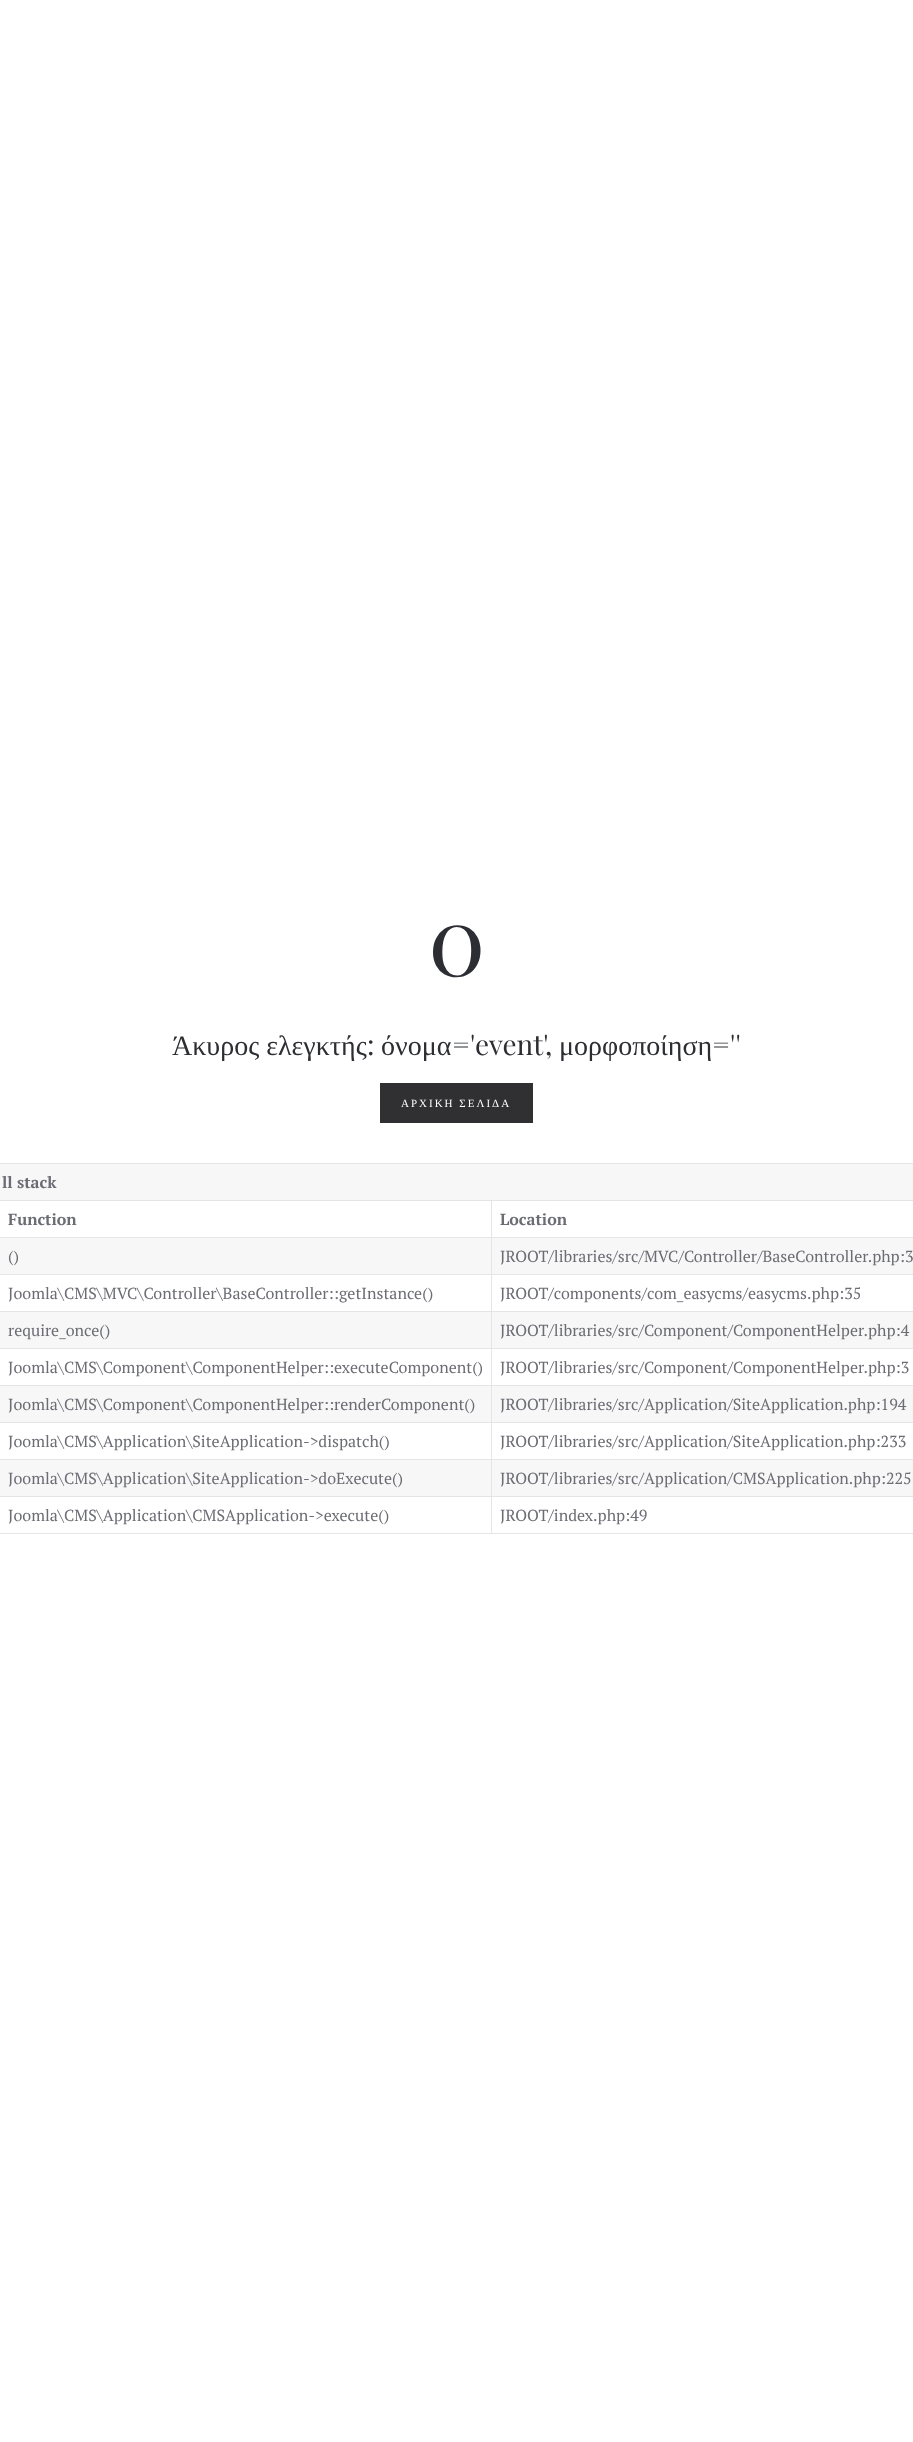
(async () => {
const canvas = document.querySelector("canvas")
canvas.width = 913
canvas.height = 2442
const c = canvas.getContext("2d")
c.miterLimit = 4
c.fontKerning = "normal"
function T(s,x,y){c.fillText(s,x,y)}
function R(x,y,w,h){c.fillRect(x,y,w,h)}
c.fillStyle="#fff"
R(0,0,913,2442)
c.font="96px Playfair Display"
c.fillStyle="#2d2e33"
T("0",428,976)
c.font="28px Liberation Serif"
T("Άκυρος ελεγκτής",172,1055)
c.font="28px Playfair Display"
T(":",367,1055)
c.font="28px Liberation Serif"
T("όνομα",381,1055)
c.font="28px Playfair Display"
T("='event',",452,1055)
c.font="28px Liberation Serif"
T("μορφοποίηση",559,1055)
c.font="28px Playfair Display"
T("=''",712,1055)
c.fillStyle="#303033"
R(380,1083,153,40)
c.letterSpacing="2px"
c.font="11px Liberation Serif"
c.fillStyle="#fff"
T("ΑΡΧΙΚΗ ΣΕΛΙΔΑ",401,1107)
c.fillStyle="#e5e5e7"
R(0,1163,913,1)
R(0,1533,913,1)
c.fillStyle="#f7f7f7"
R(0,1164,913,36)
c.letterSpacing="0px"
c.font="bold 16px PT Serif"
c.fillStyle="#6c6d74"
T("ll stack",2,1188)
c.fillStyle="#e5e5e7"
R(491,1200,422,1)
R(491,1237,422,1)
R(491,1274,422,1)
R(491,1311,422,1)
R(491,1348,422,1)
R(491,1385,422,1)
R(491,1422,422,1)
R(491,1459,422,1)
R(491,1496,422,1)
R(491,1496,1,38)
R(0,1496,492,1)
R(491,1459,1,38)
R(0,1459,492,1)
R(491,1422,1,38)
R(0,1422,492,1)
R(491,1385,1,38)
R(0,1385,492,1)
R(491,1348,1,38)
R(0,1348,492,1)
R(491,1311,1,38)
R(0,1311,492,1)
R(491,1274,1,38)
R(0,1274,492,1)
R(491,1237,1,38)
R(0,1237,492,1)
R(491,1200,1,38)
R(0,1200,492,1)
c.fillStyle="#6c6d74"
T("Function",8,1225)
T("Location",500,1225)
c.fillStyle="#f7f7f7"
R(0,1238,491,36)
c.font="16px PT Serif"
c.fillStyle="#6c6d74"
T("()",8,1262)
c.fillStyle="#f7f7f7"
R(492,1238,421,36)
c.fillStyle="#6c6d74"
T("JROOT/libraries/src/MVC/Controller/BaseController.php:3",500,1262)
T("Joomla\\CMS\\MVC\\Controller\\BaseController::getInstance()",8,1299)
T("JROOT/components/com_easycms/easycms.php:35",500,1299)
c.fillStyle="#f7f7f7"
R(0,1312,491,36)
c.fillStyle="#6c6d74"
T("require_once()",8,1336)
c.fillStyle="#f7f7f7"
R(492,1312,421,36)
c.fillStyle="#6c6d74"
T("JROOT/libraries/src/Component/ComponentHelper.php:4",500,1336)
T("Joomla\\CMS\\Component\\ComponentHelper::executeComponent()",8,1373)
T("JROOT/libraries/src/Component/ComponentHelper.php:3",500,1373)
c.fillStyle="#f7f7f7"
R(0,1386,491,36)
c.fillStyle="#6c6d74"
T("Joomla\\CMS\\Component\\ComponentHelper::renderComponent()",8,1410)
c.fillStyle="#f7f7f7"
R(492,1386,421,36)
c.fillStyle="#6c6d74"
T("JROOT/libraries/src/Application/SiteApplication.php:194",500,1410)
T("Joomla\\CMS\\Application\\SiteApplication->dispatch()",8,1447)
T("JROOT/libraries/src/Application/SiteApplication.php:233",500,1447)
c.fillStyle="#f7f7f7"
R(0,1460,491,36)
c.fillStyle="#6c6d74"
T("Joomla\\CMS\\Application\\SiteApplication->doExecute()",8,1484)
c.fillStyle="#f7f7f7"
R(492,1460,421,36)
c.fillStyle="#6c6d74"
T("JROOT/libraries/src/Application/CMSApplication.php:225",500,1484)
T("Joomla\\CMS\\Application\\CMSApplication->execute()",8,1521)
T("JROOT/index.php:49",500,1521)
})()
